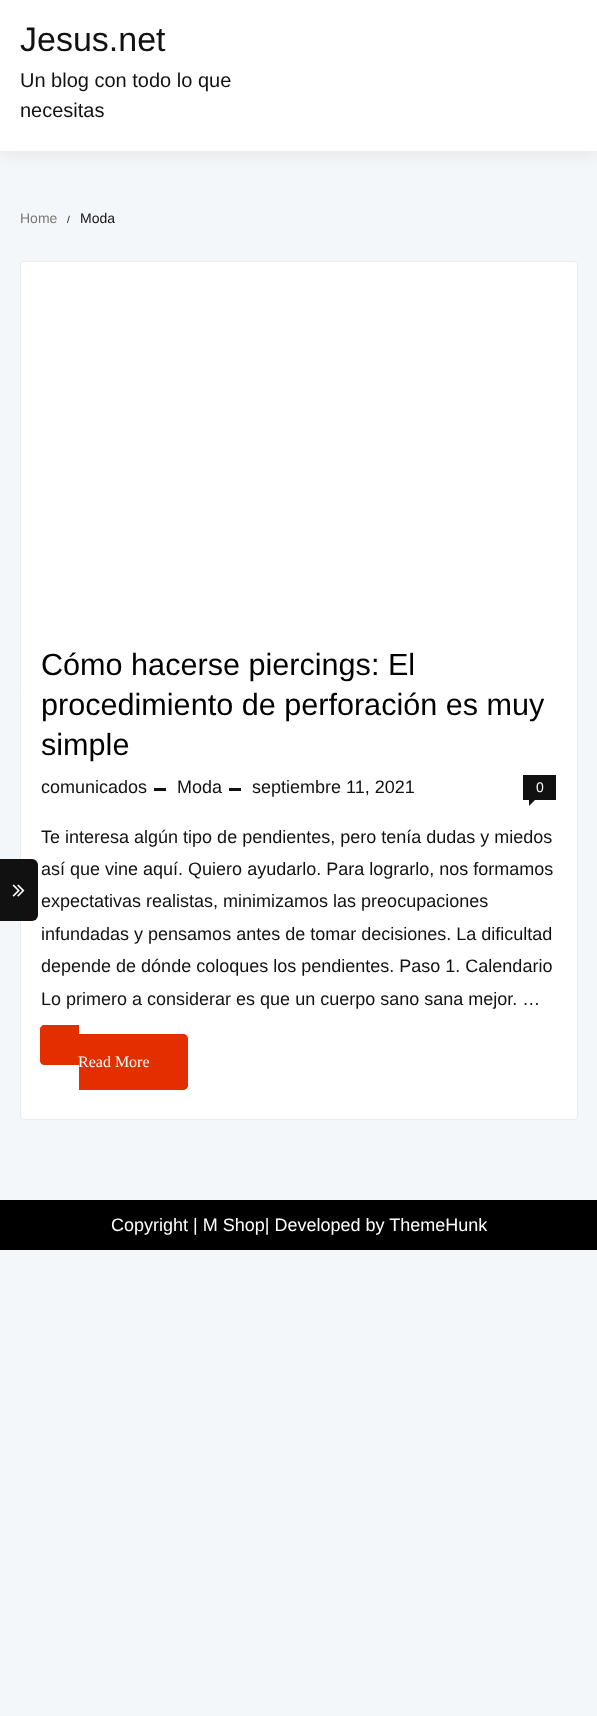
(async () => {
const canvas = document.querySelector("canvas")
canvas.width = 597
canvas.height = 1716
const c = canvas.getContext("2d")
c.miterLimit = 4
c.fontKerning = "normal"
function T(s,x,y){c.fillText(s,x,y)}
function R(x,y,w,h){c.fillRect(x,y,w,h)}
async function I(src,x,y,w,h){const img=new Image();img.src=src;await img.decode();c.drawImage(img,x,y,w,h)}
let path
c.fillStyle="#f4f7f9"
R(0,0,597,1716)
c.fillStyle="#0000000f"
c.filter="blur(7.5px)"
c.beginPath()
c.rect(1,6,595,149)
c.fill()
c.filter="none"
c.fillStyle="#fff"
R(0,0,597,151)
c.font="34px Liberation Sans"
c.fillStyle="#111"
T("Jesus.net",20,51)
c.font="20px Liberation Sans"
T("Un blog con todo lo que",20,87)
T("necesitas",20,117)
c.fillStyle="#fff"
c.beginPath()
c.roundRect(20.5,261.5,557,858,3.5)
c.fill()
c.strokeStyle="#ebebeb"
c.stroke()
c.fillStyle="#111"
c.beginPath()
c.roundRect(0,859,38,62,[0,6,6,0])
c.fill()
await I("1.png",12,884,13,13)
c.font="14px Liberation Sans"
c.fillStyle="#777"
T("Home",20,223)
c.font="10px Liberation Sans"
c.fillStyle="#111"
T("/",67,223)
c.font="14px Liberation Sans"
T("Moda",80,223)
c.font="30.6px Liberation Sans"
c.fillStyle="#000"
T("Cómo hacerse piercings: El",41,675)
T("procedimiento de perforación es muy",41,715)
T("simple",41,755)
c.font="18px Liberation Sans"
c.fillStyle="#111"
T("comunicados",41,793)
R(154,788,12,3)
T("Moda",177,793)
R(229,788,12,3)
T("septiembre 11, 2021",252,793)
R(523,775,33,25)
c.font="14px Liberation Sans"
c.fillStyle="#fff"
T("0",536,792)
c.fillStyle="#111"
path = new Path2D("M529 806v-12l6 6z")
c.fill(path)
c.font="18px Liberation Sans"
T("Te interesa algún tipo de pendientes, pero tenía dudas y miedos",41,843)
T("así que vine aquí. Quiero ayudarlo. Para lograrlo, nos formamos",41,875)
T("expectativas realistas, minimizamos las preocupaciones",41,907)
T("infundadas y pensamos antes de tomar decisiones. La dificultad",41,940)
T("depende de dónde coloques los pendientes. Paso 1. Calendario",41,972)
T("Lo primero a considerar es que un cuerpo sano sana mejor. …",41,1005)
c.fillStyle="#e32e00"
c.beginPath()
c.roundRect(40,1025,39,40,[5,0,0,5])
c.fill()
path = new Path2D("M45 1025h34v40h-34c-3 0-5-2-5-5v-30c0-3 2-5 5-5zm0 1h34v38h-34c-2 0-4-2-4-4v-30c0-2 2-4 4-4z")
c.fill(path,"evenodd")
c.beginPath()
c.roundRect(79,1034,109,56,[0,5,5,0])
c.fill()
path = new Path2D("M79 1034h103c3 0 6 2 6 5v46c0 3-3 5-6 5h-103zm0 1h103c3 0 4 2 4 4v46c0 2-1 4-4 4h-103z")
c.fill(path,"evenodd")
c.font="16px Liberation Serif"
c.fillStyle="#fff"
T("Read More",78,1067)
c.fillStyle="#000"
R(0,1200,597,50)
c.font="18px Liberation Sans"
c.fillStyle="#fff"
T("Copyright | M Shop| Developed by ThemeHunk",111,1231)
})()
